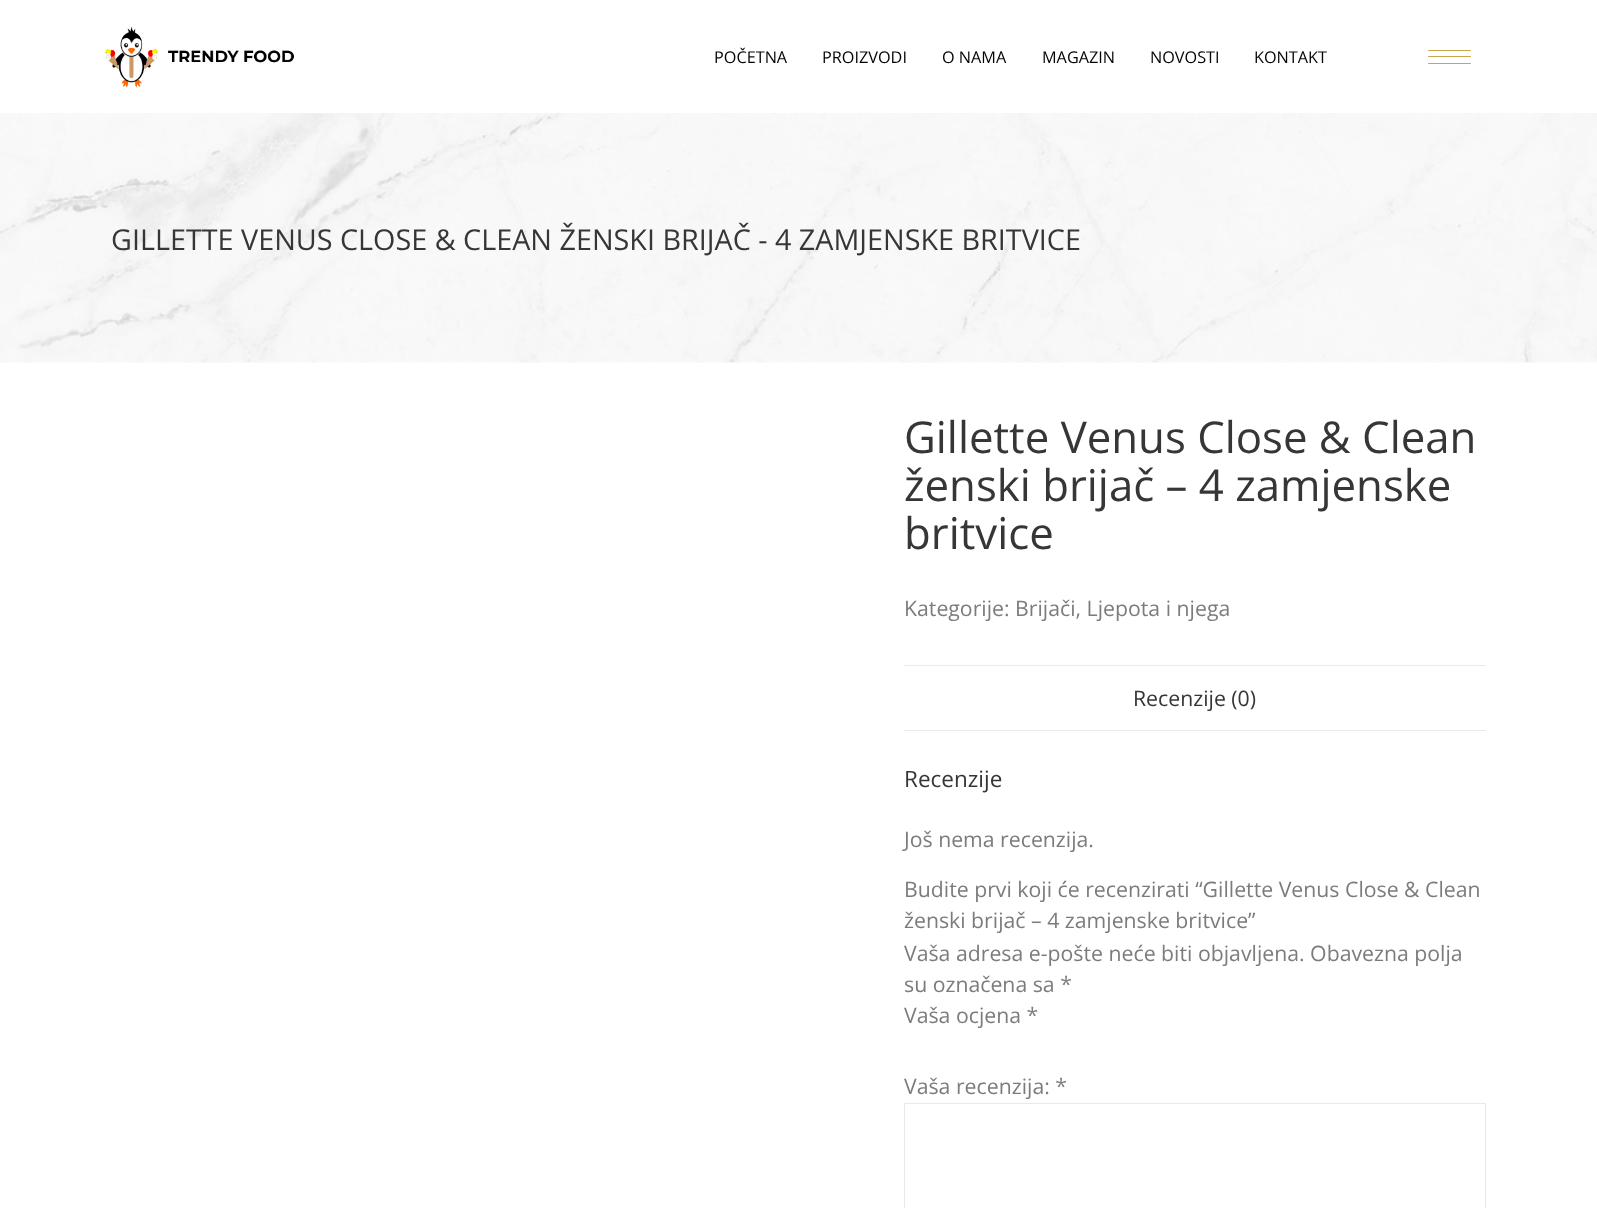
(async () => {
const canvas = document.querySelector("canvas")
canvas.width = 1597
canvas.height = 1208
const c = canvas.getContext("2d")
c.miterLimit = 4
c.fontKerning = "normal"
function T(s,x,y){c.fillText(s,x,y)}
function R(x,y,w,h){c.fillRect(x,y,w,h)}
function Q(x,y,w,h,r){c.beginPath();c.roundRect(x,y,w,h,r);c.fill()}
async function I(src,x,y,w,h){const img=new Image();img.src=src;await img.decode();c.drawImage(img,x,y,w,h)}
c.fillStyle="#fff"
R(0,0,1597,1208)
await I("1.png",105,26,190,62)
c.font="16.25px Open Sans"
c.fillStyle="#030303"
T("POČETNA",714,63)
T("PROIZVODI",822,63)
T("O NAMA",942,63)
T("MAGAZIN",1042,63)
T("NOVOSTI",1150,63)
T("KONTAKT",1254,63)
c.fillStyle="#c9a74d"
Q(1428,50,43,1,.5)
Q(1428,56,43,1,.5)
Q(1428,63,43,1,.5)
await I("2.png",0,113,1597,250)
c.font="28.75px Open Sans"
c.fillStyle="#363636"
T("GILLETTE VENUS CLOSE & CLEAN ŽENSKI BRIJAČ - 4 ZAMJENSKE BRITVICE",111,250)
c.font="43.75px Open Sans"
T("Gillette Venus Close & Clean",904,453)
T("ženski brijač – 4 zamjenske",904,501)
T("britvice",904,549)
c.font="21.25px Open Sans"
c.fillStyle="#7c7c7c"
T("Kategorije: Brijači, Ljepota i njega",904,616)
c.fillStyle="#ebe9e9"
R(904,665,582,1)
R(904,730,582,1)
c.fillStyle="#363636"
T("Recenzije (0)",1133,706)
c.font="22.5px Open Sans"
T("Recenzije",904,787)
c.font="21.25px Open Sans"
c.fillStyle="#7c7c7c"
T("Još nema recenzija.",904,847)
T("Budite prvi koji će recenzirati “Gillette Venus Close & Clean",904,897)
T("ženski brijač – 4 zamjenske britvice”",904,928)
T("Vaša adresa e-pošte neće biti objavljena. Obavezna polja",904,961)
T("su označena sa *",904,992)
T("Vaša ocjena *",904,1023)
T("Vaša recenzija: *",904,1094)
c.strokeStyle="#ebe9e9"
c.strokeRect(904.5,1103.5,581,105)
})()
